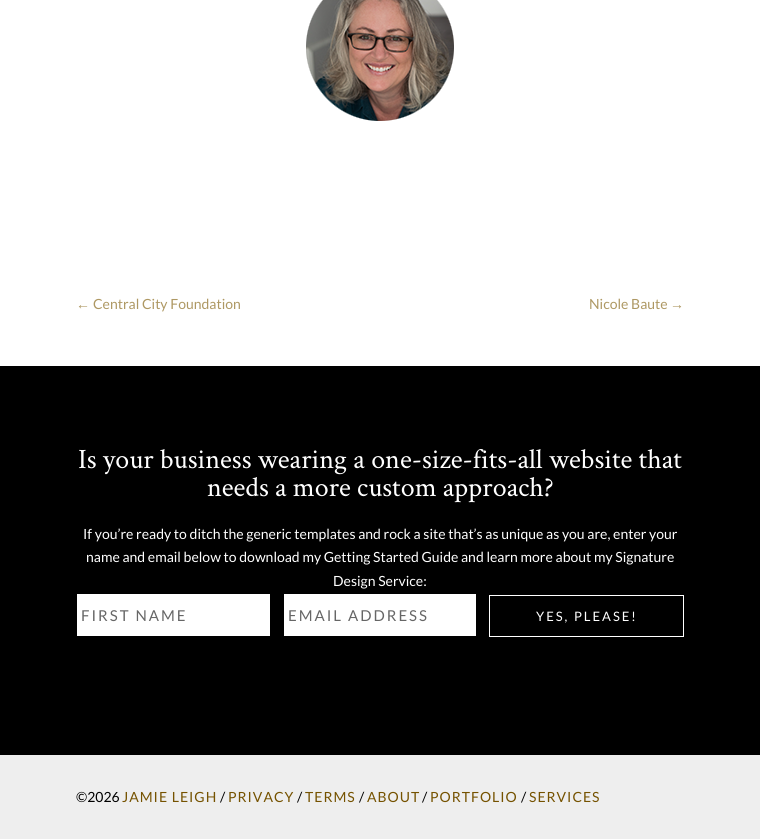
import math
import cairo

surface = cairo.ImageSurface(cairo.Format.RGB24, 760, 839)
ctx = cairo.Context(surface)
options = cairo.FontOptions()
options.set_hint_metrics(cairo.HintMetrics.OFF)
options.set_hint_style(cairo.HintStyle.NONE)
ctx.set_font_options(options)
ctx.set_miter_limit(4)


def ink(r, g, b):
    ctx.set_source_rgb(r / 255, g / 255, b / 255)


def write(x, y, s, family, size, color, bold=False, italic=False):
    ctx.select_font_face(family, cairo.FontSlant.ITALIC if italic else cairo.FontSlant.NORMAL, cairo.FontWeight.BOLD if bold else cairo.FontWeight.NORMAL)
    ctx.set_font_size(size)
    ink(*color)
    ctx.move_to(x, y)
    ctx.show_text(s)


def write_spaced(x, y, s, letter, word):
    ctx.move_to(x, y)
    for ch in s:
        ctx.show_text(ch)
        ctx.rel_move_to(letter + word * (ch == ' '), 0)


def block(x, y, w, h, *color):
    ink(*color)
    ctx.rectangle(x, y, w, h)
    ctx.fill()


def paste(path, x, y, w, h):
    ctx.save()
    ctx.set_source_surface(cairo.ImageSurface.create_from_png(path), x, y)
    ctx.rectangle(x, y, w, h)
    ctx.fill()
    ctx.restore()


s1 = dict(family="Liberation Sans", size=14, color=(174, 152, 99))
s2 = dict(family="Lato", size=14, color=(174, 152, 99))
s3 = dict(family="Crimson Text", size=28, color=(255, 255, 255))
s4 = dict(family="Lato", size=14, color=(255, 255, 255))
s5 = dict(family="Lato", size=14, color=(0, 0, 0))

ink(255, 255, 255)
ctx.paint()
paste("pic1.png", 306, 0, 148, 121)
write(76, 309, "←", **s1)
write(93, 309, "Central City Foundation", **s2)
write(589, 309, "Nicole Baute", **s2)
write(670, 309, "→", **s1)
block(0, 366, 760, 389, 0, 0, 0)
write(78, 468, "Is your business wearing a one-size-fits-all website that", **s3)
write(207, 496, "needs a more custom approach?", **s3)
write(83, 539, "If you’re ready to ditch the generic templates and rock a site that’s as unique as you are, enter your", **s4)
write(86, 562, "name and email below to download my Getting Started Guide and learn more about my Signature", **s4)
write(333, 586, "Design Service:", **s4)
block(77, 594, 193, 42, 255, 255, 255)
ctx.set_font_size(15)
ink(102, 102, 102)
write_spaced(81, 621, "FIRST NAME", 2, 0)
block(284, 594, 192, 42, 255, 255, 255)
ink(102, 102, 102)
write_spaced(288, 621, "EMAIL ADDRESS", 2, 0)
ctx.rectangle(489.5, 595.5, 194, 41)
ink(255, 255, 255)
ctx.set_line_width(1)
ctx.stroke()
ctx.set_font_size(13)
write_spaced(536, 621, "YES, PLEASE!", 2, 0)
block(0, 755, 760, 84, 238, 238, 238)
write(76, 802, "©2026", **s5)
ink(117, 82, 0)
write_spaced(122, 802, "JAMIE LEIGH", 1, 0)
write(220, 802, "/", **s5)
ink(117, 82, 0)
write_spaced(228, 802, "PRIVACY", 1, 0)
write(297, 802, "/", **s5)
ink(117, 82, 0)
write_spaced(305, 802, "TERMS", 1, 0)
write(359, 802, "/", **s5)
ink(117, 82, 0)
write_spaced(367, 802, "ABOUT", 1, 0)
write(422, 802, "/", **s5)
ink(117, 82, 0)
write_spaced(430, 802, "PORTFOLIO", 1, 0)
write(521, 802, "/", **s5)
ink(117, 82, 0)
write_spaced(529, 802, "SERVICES", 1, 0)
surface.write_to_png("screenshot.png")
